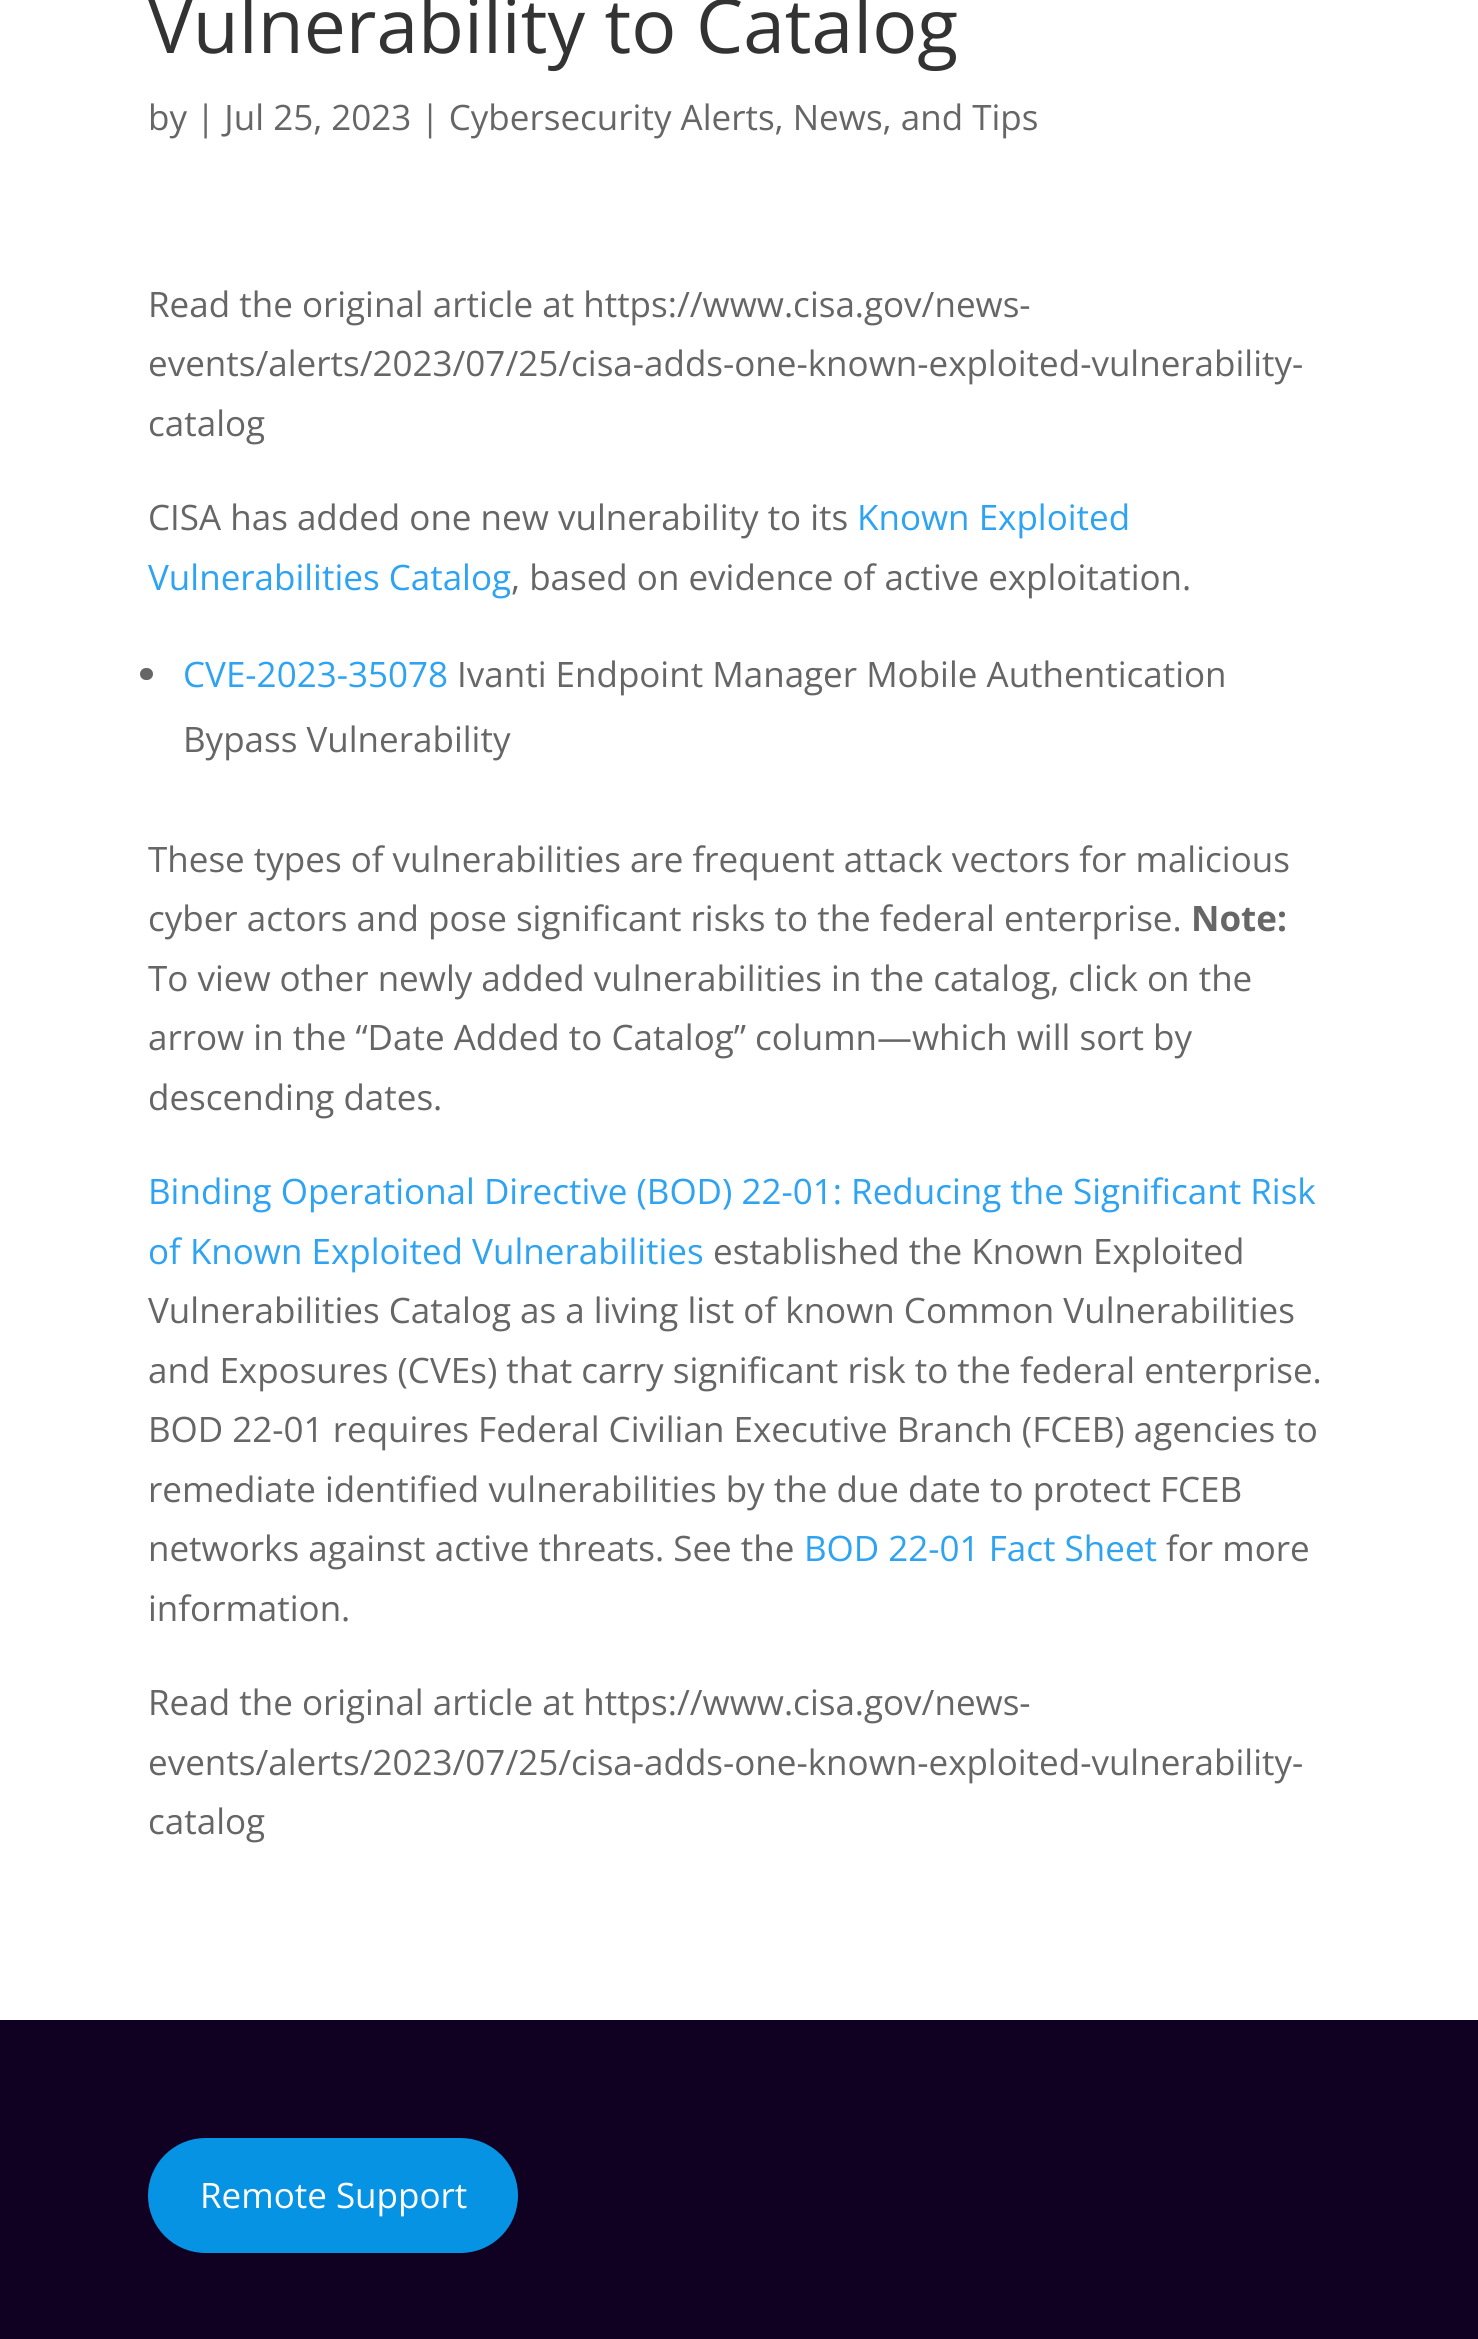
import math
import cairo

surface = cairo.ImageSurface(cairo.Format.RGB24, 1478, 2339)
ctx = cairo.Context(surface)
options = cairo.FontOptions()
options.set_hint_metrics(cairo.HintMetrics.OFF)
options.set_hint_style(cairo.HintStyle.NONE)
ctx.set_font_options(options)
ctx.set_miter_limit(4)


def ink(r, g, b):
    ctx.set_source_rgb(r / 255, g / 255, b / 255)


def write(x, y, s, family, size, color, bold=False, italic=False):
    ctx.select_font_face(family, cairo.FontSlant.ITALIC if italic else cairo.FontSlant.NORMAL, cairo.FontWeight.BOLD if bold else cairo.FontWeight.NORMAL)
    ctx.set_font_size(size)
    ink(*color)
    ctx.move_to(x, y)
    ctx.show_text(s)


def block(x, y, w, h, *color):
    ink(*color)
    ctx.rectangle(x, y, w, h)
    ctx.fill()


def round_path(x, y, w, h, r):
    ctx.new_sub_path()
    for i, (u, v) in enumerate([(x + w - r, y + h - r), (x + r, y + h - r), (x + r, y + r), (x + w - r, y + r)]):
        ctx.arc(u, v, r, i * math.pi / 2, (i + 1) * math.pi / 2)
    ctx.close_path()


s1 = dict(family="Open Sans", size=75, color=(51, 51, 51))
s2 = dict(family="Open Sans", size=35, color=(102, 102, 102))
s3 = dict(family="Open Sans", size=35, color=(46, 163, 242))
s4 = dict(family="Open Sans", size=35, color=(102, 102, 102), bold=True)
s5 = dict(family="Open Sans", size=35, color=(255, 255, 255))

ink(255, 255, 255)
ctx.paint()
write(148, 53, "Vulnerability to Catalog", **s1)
write(148, 130, "by | Jul 25, 2023 | Cybersecurity Alerts, News, and Tips", **s2)
write(148, 317, "Read the original article at https://www.cisa.gov/news-", **s2)
write(148, 376, "events/alerts/2023/07/25/cisa-adds-one-known-exploited-vulnerability-", **s2)
write(148, 436, "catalog", **s2)
write(148, 530, "CISA has added one new vulnerability to its", **s2)
write(857, 530, "Known Exploited", **s3)
write(148, 590, "Vulnerabilities Catalog", **s3)
write(511, 590, ", based on evidence of active exploitation.", **s2)
round_path(140, 668, 13, 12, 6)
ctx.fill()
write(183, 687, "CVE-2023-35078", **s3)
write(457, 687, "Ivanti Endpoint Manager Mobile Authentication", **s2)
write(183, 752, "Bypass Vulnerability", **s2)
write(148, 872, "These types of vulnerabilities are frequent attack vectors for malicious", **s2)
write(148, 931, "cyber actors and pose significant risks to the federal enterprise.", **s2)
write(1191, 931, "Note:", **s4)
write(148, 991, "To view other newly added vulnerabilities in the catalog, click on the", **s2)
write(148, 1050, "arrow in the “Date Added to Catalog” column—which will sort by", **s2)
write(148, 1110, "descending dates.", **s2)
write(148, 1204, "Binding Operational Directive (BOD) 22-01: Reducing the Significant Risk", **s3)
write(148, 1264, "of Known Exploited Vulnerabilities", **s3)
write(713, 1264, "established the Known Exploited", **s2)
write(148, 1323, "Vulnerabilities Catalog as a living list of known Common Vulnerabilities", **s2)
write(148, 1383, "and Exposures (CVEs) that carry significant risk to the federal enterprise.", **s2)
write(148, 1442, "BOD 22-01 requires Federal Civilian Executive Branch (FCEB) agencies to", **s2)
write(148, 1502, "remediate identified vulnerabilities by the due date to protect FCEB", **s2)
write(148, 1561, "networks against active threats. See the", **s2)
write(804, 1561, "BOD 22-01 Fact Sheet", **s3)
write(1166, 1561, "for more", **s2)
write(148, 1621, "information.", **s2)
write(148, 1715, "Read the original article at https://www.cisa.gov/news-", **s2)
write(148, 1775, "events/alerts/2023/07/25/cisa-adds-one-known-exploited-vulnerability-", **s2)
write(148, 1834, "catalog", **s2)
block(0, 2020, 1478, 319, 16, 1, 34)
ink(6, 147, 227)
round_path(148, 2138, 370, 115, 57.5)
ctx.fill()
write(200, 2208, "Remote Support", **s5)
surface.write_to_png("screenshot.png")
